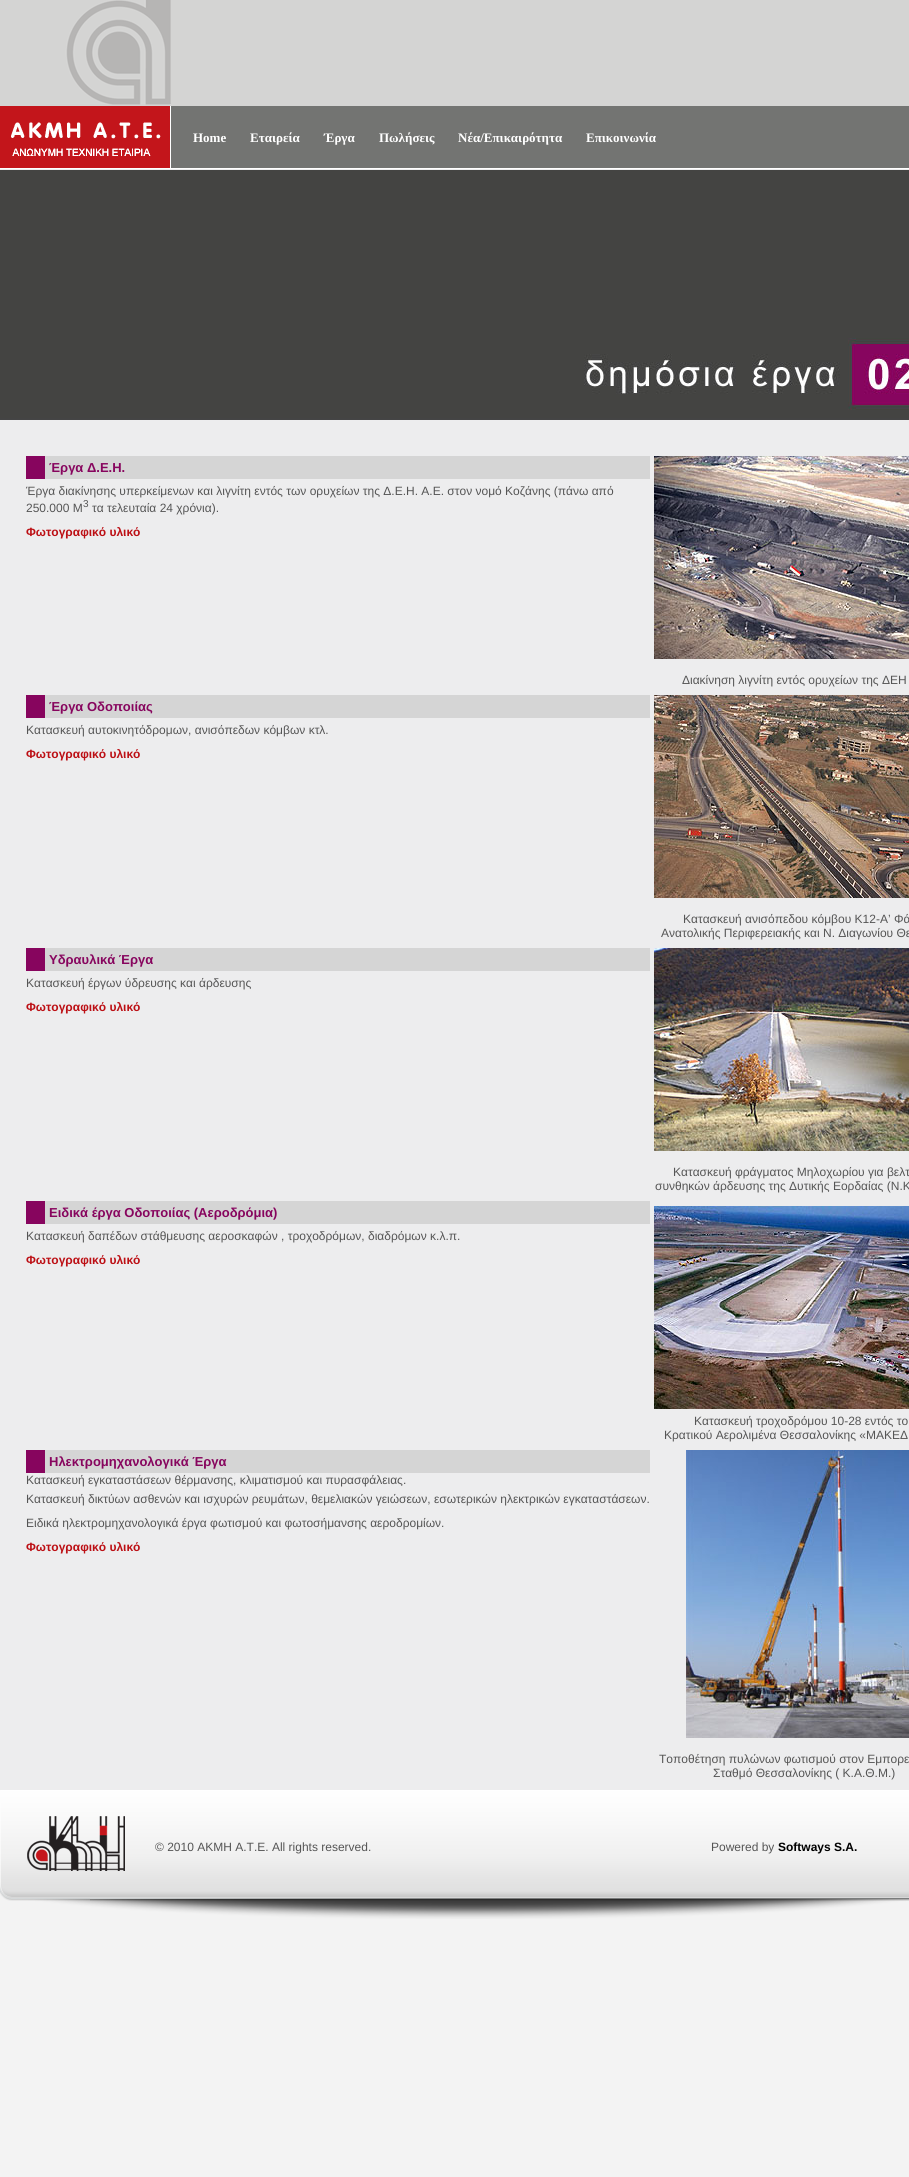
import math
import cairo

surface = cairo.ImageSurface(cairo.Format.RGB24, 909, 2177)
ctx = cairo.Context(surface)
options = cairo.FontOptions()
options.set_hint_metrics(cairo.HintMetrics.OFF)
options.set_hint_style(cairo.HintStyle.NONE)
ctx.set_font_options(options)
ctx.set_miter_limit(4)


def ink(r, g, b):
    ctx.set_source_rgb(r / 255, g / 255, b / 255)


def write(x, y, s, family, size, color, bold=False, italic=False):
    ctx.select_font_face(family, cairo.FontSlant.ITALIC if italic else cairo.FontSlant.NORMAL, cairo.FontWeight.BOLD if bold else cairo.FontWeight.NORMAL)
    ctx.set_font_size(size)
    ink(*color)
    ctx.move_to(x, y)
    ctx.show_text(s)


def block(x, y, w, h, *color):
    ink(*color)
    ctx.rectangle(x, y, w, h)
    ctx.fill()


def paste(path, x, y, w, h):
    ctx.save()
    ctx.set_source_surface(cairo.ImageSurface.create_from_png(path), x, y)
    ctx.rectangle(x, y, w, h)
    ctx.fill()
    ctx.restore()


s1 = dict(family="Liberation Serif", size=13, color=(255, 255, 255), bold=True)
s2 = dict(family="Liberation Sans", size=13, color=(135, 5, 94), bold=True)
s3 = dict(family="Liberation Sans", size=12, color=(85, 85, 85))
s4 = dict(family="Liberation Sans", size=10, color=(85, 85, 85))
s5 = dict(family="Liberation Sans", size=12, color=(188, 15, 20), bold=True)
s6 = dict(family="Liberation Sans", size=12, color=(0, 0, 0), bold=True)

ink(243, 243, 243)
ctx.paint()
paste("pic1.png", 0, 0, 909, 440)
paste("pic2.png", 0, 0, 171, 168)
write(193, 142, "Home", **s1)
write(250, 142, "Εταιρεία", **s1)
write(324, 142, "Έργα", **s1)
write(379, 142, "Πωλήσεις", **s1)
write(458, 142, "Νέα/Επικαιρότητα", **s1)
write(586, 142, "Επικοινωνία", **s1)
paste("pic3.png", 0, 170, 909, 250)
block(0, 440, 909, 1350, 237, 237, 238)
block(26, 456, 19, 23, 135, 5, 94)
block(45, 456, 605, 23, 213, 213, 213)
write(49, 472, "Έργα Δ.Ε.Η.", **s2)
write(26, 495, "Έργα διακίνησης υπερκείμενων και λιγνίτη εντός των ορυχείων της Δ.Ε.Η. Α.Ε. στον νομό Κοζάνης (πάνω από", **s3)
write(26, 512, "250.000 Μ", **s3)
write(83, 507, "3", **s4)
write(92, 512, "τα τελευταία 24 χρόνια).", **s3)
write(26, 536, "Φωτογραφικό υλικό", **s5)
paste("pic4.png", 654, 456, 255, 203)
write(682, 684, "Διακίνηση λιγνίτη εντός ορυχείων της ΔΕΗ", **s3)
block(26, 695, 19, 23, 135, 5, 94)
block(45, 695, 605, 23, 213, 213, 213)
write(49, 711, "Έργα Οδοποιίας", **s2)
write(26, 734, "Κατασκευή αυτοκινητόδρομων, ανισόπεδων κόμβων κτλ.", **s3)
write(26, 758, "Φωτογραφικό υλικό", **s5)
paste("pic5.png", 654, 695, 255, 203)
write(683, 923, "Κατασκευή ανισόπεδου κόμβου Κ12-Α’ Φά", **s3)
write(661, 937, "Ανατολικής Περιφερειακής και Ν. Διαγωνίου Θε", **s3)
block(26, 948, 19, 23, 135, 5, 94)
block(45, 948, 605, 23, 213, 213, 213)
write(49, 964, "Υδραυλικά Έργα", **s2)
write(26, 987, "Κατασκευή έργων ύδρευσης και άρδευσης", **s3)
write(26, 1011, "Φωτογραφικό υλικό", **s5)
paste("pic6.png", 654, 948, 255, 203)
write(673, 1176, "Κατασκευή φράγματος Μηλοχωρίου για βελτ", **s3)
write(655, 1190, "συνθηκών άρδευσης της Δυτικής Εορδαίας (Ν.Κ", **s3)
block(26, 1201, 19, 23, 135, 5, 94)
block(45, 1201, 605, 23, 213, 213, 213)
write(49, 1217, "Ειδικά έργα Οδοποιίας (Αεροδρόμια)", **s2)
write(26, 1240, "Κατασκευή δαπέδων στάθμευσης αεροσκαφών , τροχοδρόμων, διαδρόμων κ.λ.π.", **s3)
write(26, 1264, "Φωτογραφικό υλικό", **s5)
paste("pic7.png", 654, 1206, 255, 203)
write(694, 1425, "Κατασκευή τροχοδρόμου 10-28 εντός το", **s3)
write(664, 1439, "Κρατικού Αερολιμένα Θεσσαλονίκης «ΜΑΚΕΔ", **s3)
block(26, 1450, 19, 23, 135, 5, 94)
block(45, 1450, 605, 23, 213, 213, 213)
write(49, 1466, "Ηλεκτρομηχανολογικά Έργα", **s2)
write(26, 1484, "Κατασκευή εγκαταστάσεων θέρμανσης, κλιματισμού και πυρασφάλειας.", **s3)
write(26, 1503, "Κατασκευή δικτύων ασθενών και ισχυρών ρευμάτων, θεμελιακών γειώσεων, εσωτερικών ηλεκτρικών εγκαταστάσεων.", **s3)
write(26, 1527, "Ειδικά ηλεκτρομηχανολογικά έργα φωτισμού και φωτοσήμανσης αεροδρομίων.", **s3)
write(26, 1551, "Φωτογραφικό υλικό", **s5)
paste("pic8.png", 686, 1450, 223, 288)
write(659, 1763, "Τοποθέτηση πυλώνων φωτισμού στον Εμπορε", **s3)
write(713, 1777, "Σταθμό Θεσσαλονίκης ( Κ.Α.Θ.Μ.)", **s3)
paste("pic9.png", 0, 1790, 909, 129)
write(155, 1851, "© 2010 ΑΚΜΗ Α.Τ.Ε. All rights reserved.", **s3)
write(711, 1851, "Powered by", **s3)
write(778, 1851, "Softways S.A.", **s6)
surface.write_to_png("screenshot.png")
